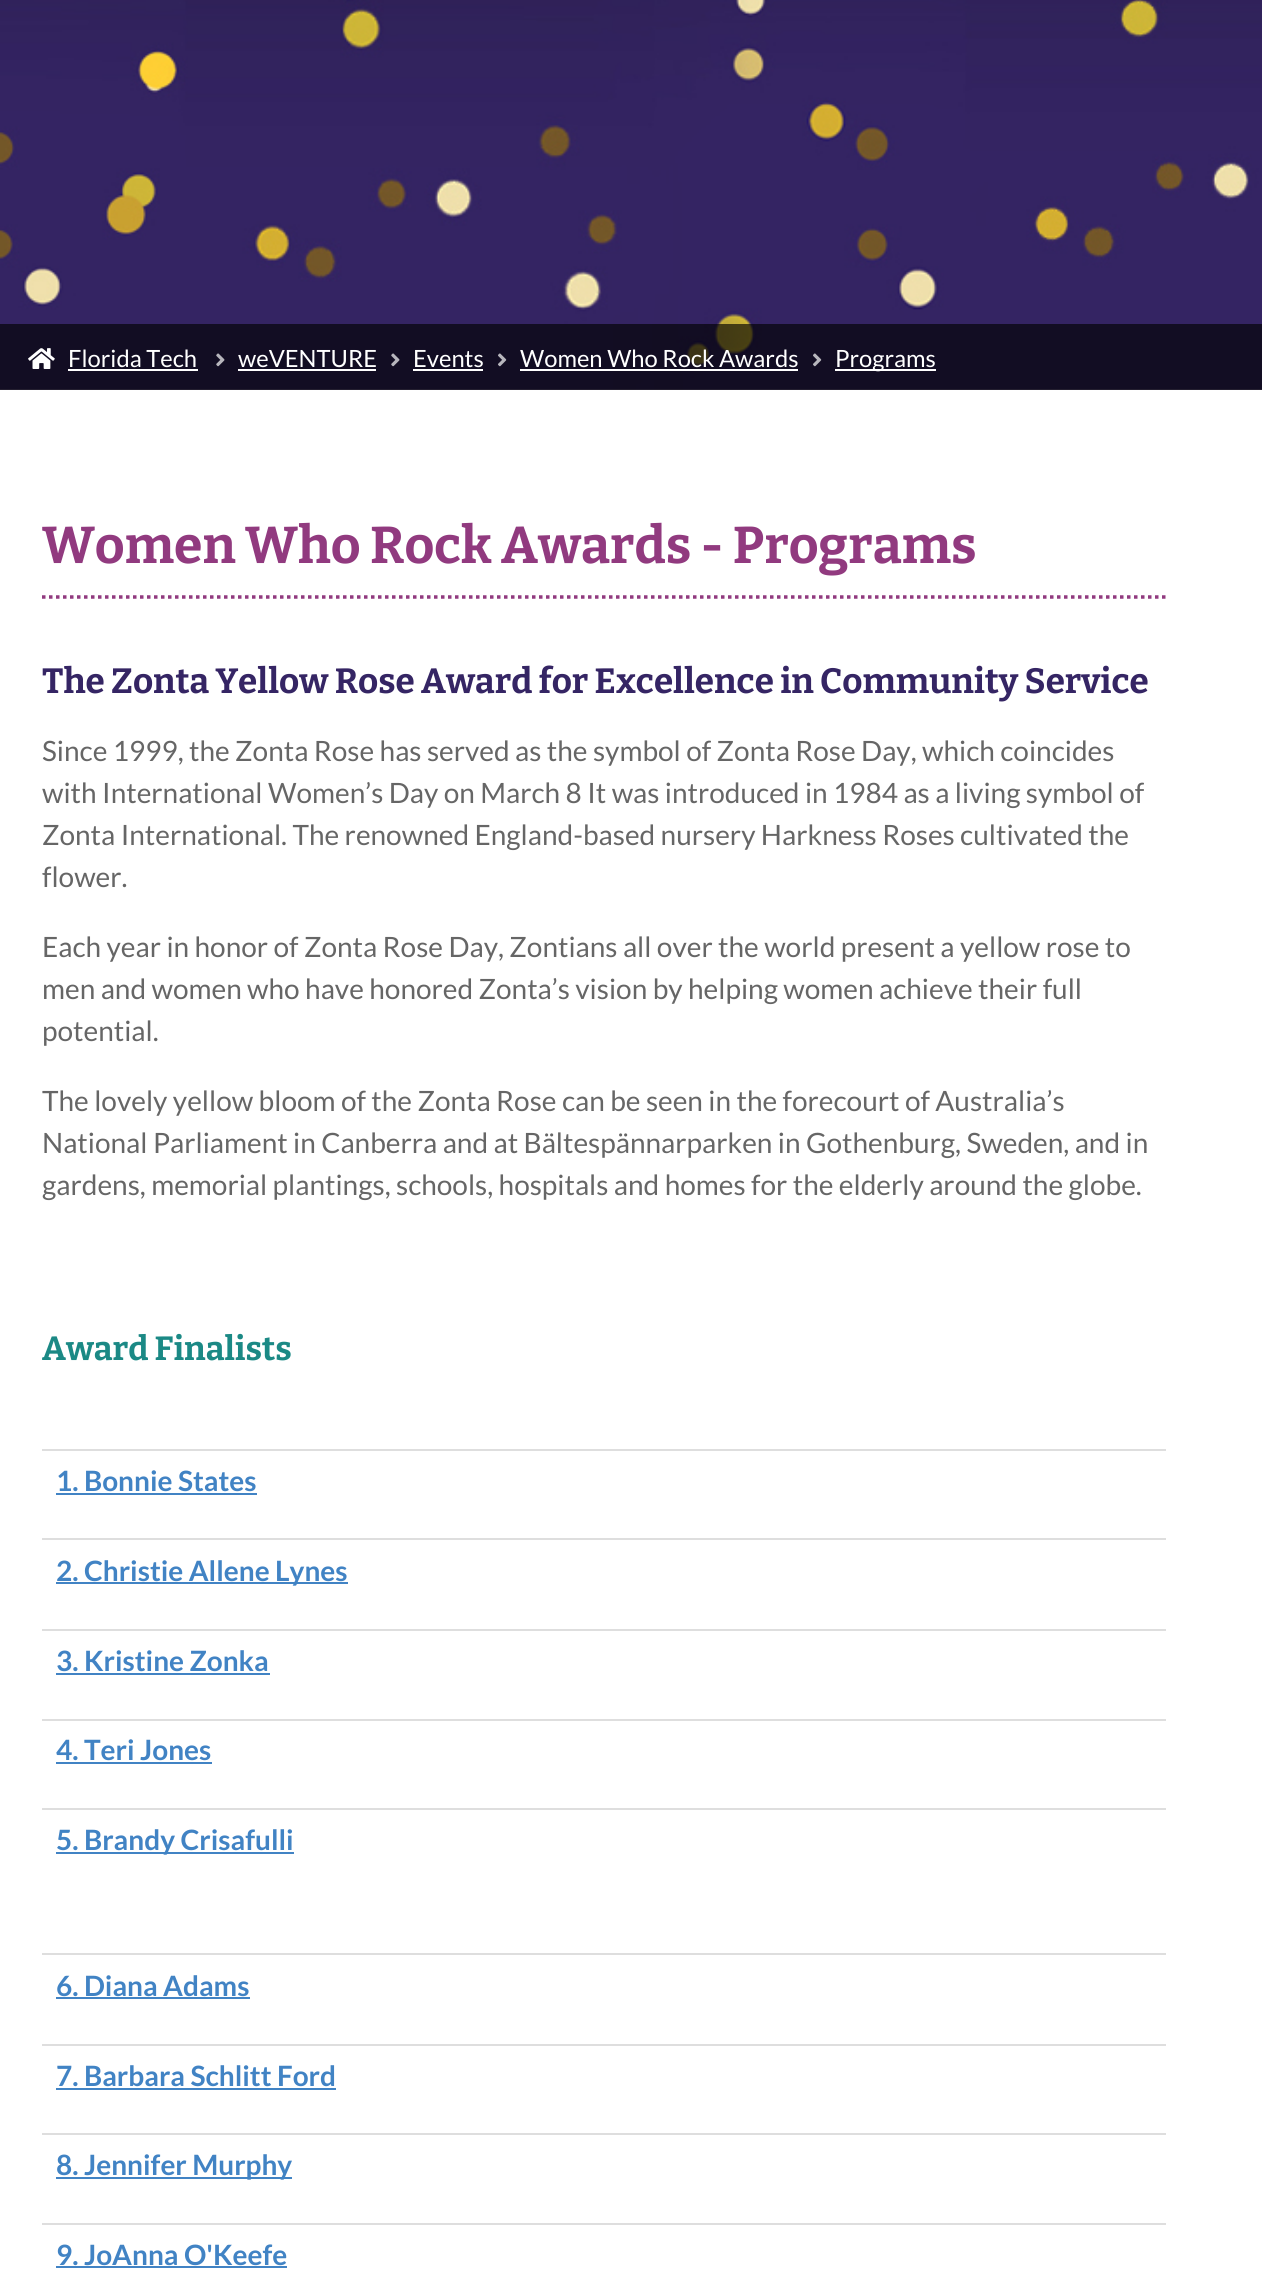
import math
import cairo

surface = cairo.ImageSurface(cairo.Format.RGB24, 1262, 2283)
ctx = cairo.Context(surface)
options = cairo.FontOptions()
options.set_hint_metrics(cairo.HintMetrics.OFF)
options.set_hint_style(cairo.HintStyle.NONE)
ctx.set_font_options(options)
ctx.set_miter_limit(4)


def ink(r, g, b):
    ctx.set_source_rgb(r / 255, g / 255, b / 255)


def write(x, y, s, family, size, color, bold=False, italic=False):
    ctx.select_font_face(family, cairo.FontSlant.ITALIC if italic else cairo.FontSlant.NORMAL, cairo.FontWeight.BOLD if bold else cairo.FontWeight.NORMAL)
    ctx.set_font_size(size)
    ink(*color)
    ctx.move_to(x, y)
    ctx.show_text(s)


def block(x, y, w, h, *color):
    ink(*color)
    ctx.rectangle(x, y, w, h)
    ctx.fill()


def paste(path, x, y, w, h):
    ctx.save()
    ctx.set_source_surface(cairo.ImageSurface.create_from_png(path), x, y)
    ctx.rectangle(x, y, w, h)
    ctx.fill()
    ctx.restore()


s1 = dict(family="Lato", size=23.75, color=(255, 255, 255))
s2 = dict(family="Bitter", size=51.75, color=(145, 58, 127), bold=True)
s3 = dict(family="Bitter", size=35, color=(53, 37, 100), bold=True)
s4 = dict(family="Lato", size=28, color=(102, 102, 102))
s5 = dict(family="Bitter", size=33.5, color=(27, 137, 133), bold=True)
s6 = dict(family="Lato", size=28, color=(65, 131, 196), bold=True)

ink(255, 255, 255)
ctx.paint()
paste("pic1.png", 0, 0, 1262, 390)
ctx.set_source_rgba(0, 0, 0, 0.65)
ctx.rectangle(0, 324, 1262, 66)
ctx.fill()
paste("pic2.png", 28, 348, 27, 21)
write(68, 367, "Florida Tech", **s1)
block(68, 369, 130, 2, 255, 255, 255)
paste("pic3.png", 216, 353, 9, 14)
write(238, 367, "weVENTURE", **s1)
block(238, 369, 138, 2, 255, 255, 255)
paste("pic3.png", 391, 353, 9, 14)
write(413, 367, "Events", **s1)
block(413, 369, 70, 2, 255, 255, 255)
paste("pic4.png", 498, 353, 9, 14)
write(520, 367, "Women Who Rock Awards", **s1)
block(520, 369, 278, 2, 255, 255, 255)
paste("pic4.png", 813, 353, 9, 14)
block(835, 369, 101, 2, 255, 255, 255)
write(835, 367, "Programs", **s1)
ctx.new_path()
ctx.move_to(42, 597)
ctx.line_to(1165.5, 597)
ink(145, 58, 127)
ctx.set_line_width(3.5)
ctx.set_dash([3.5, 3.5])
ctx.stroke()
write(42, 563, "Women Who Rock Awards - Programs", **s2)
write(42, 693, "The Zonta Yellow Rose Award for Excellence in Community Service", **s3)
write(42, 761, "Since 1999, the Zonta Rose has served as the symbol of Zonta Rose Day, which coincides", **s4)
write(42, 803, "with International Women’s Day on March 8 It was introduced in 1984 as a living symbol of", **s4)
write(42, 845, "Zonta International. The renowned England-based nursery Harkness Roses cultivated the", **s4)
write(42, 887, "flower.", **s4)
write(42, 957, "Each year in honor of Zonta Rose Day, Zontians all over the world present a yellow rose to", **s4)
write(42, 999, "men and women who have honored Zonta’s vision by helping women achieve their full", **s4)
write(42, 1041, "potential.", **s4)
write(42, 1111, "The lovely yellow bloom of the Zonta Rose can be seen in the forecourt of Australia’s", **s4)
write(42, 1153, "National Parliament in Canberra and at Bältespännarparken in Gothenburg, Sweden, and in", **s4)
write(42, 1195, "gardens, memorial plantings, schools, hospitals and homes for the elderly around the globe.", **s4)
write(42, 1360, "Award Finalists", **s5)
block(42, 1449, 1124, 2, 222, 222, 222)
write(56, 1491, "1. Bonnie States", **s6)
block(56, 1493, 201, 2, 65, 131, 196)
block(42, 1538, 1124, 2, 222, 222, 222)
block(56, 1582, 292, 2, 65, 131, 196)
write(56, 1581, "2. Christie Allene Lynes", **s6)
block(42, 1629, 1124, 2, 222, 222, 222)
write(56, 1671, "3. Kristine Zonka", **s6)
block(56, 1673, 214, 2, 65, 131, 196)
block(42, 1719, 1124, 2, 222, 222, 222)
write(56, 1760, "4. Teri Jones", **s6)
block(56, 1762, 156, 2, 65, 131, 196)
block(42, 1808, 1124, 2, 222, 222, 222)
block(56, 1852, 238, 2, 65, 131, 196)
write(56, 1850, "5. Brandy Crisafulli", **s6)
block(42, 1953, 1124, 2, 222, 222, 222)
write(56, 1996, "6. Diana Adams", **s6)
block(56, 1997, 194, 2, 65, 131, 196)
block(42, 2044, 1124, 2, 222, 222, 222)
write(56, 2086, "7. Barbara Schlitt Ford", **s6)
block(56, 2088, 280, 2, 65, 131, 196)
block(42, 2133, 1124, 2, 222, 222, 222)
block(56, 2177, 236, 2, 65, 131, 196)
write(56, 2175, "8. Jennifer Murphy", **s6)
block(42, 2223, 1124, 2, 222, 222, 222)
write(56, 2265, "9. JoAnna O'Keefe", **s6)
block(56, 2266, 231, 2, 65, 131, 196)
surface.write_to_png("screenshot.png")
